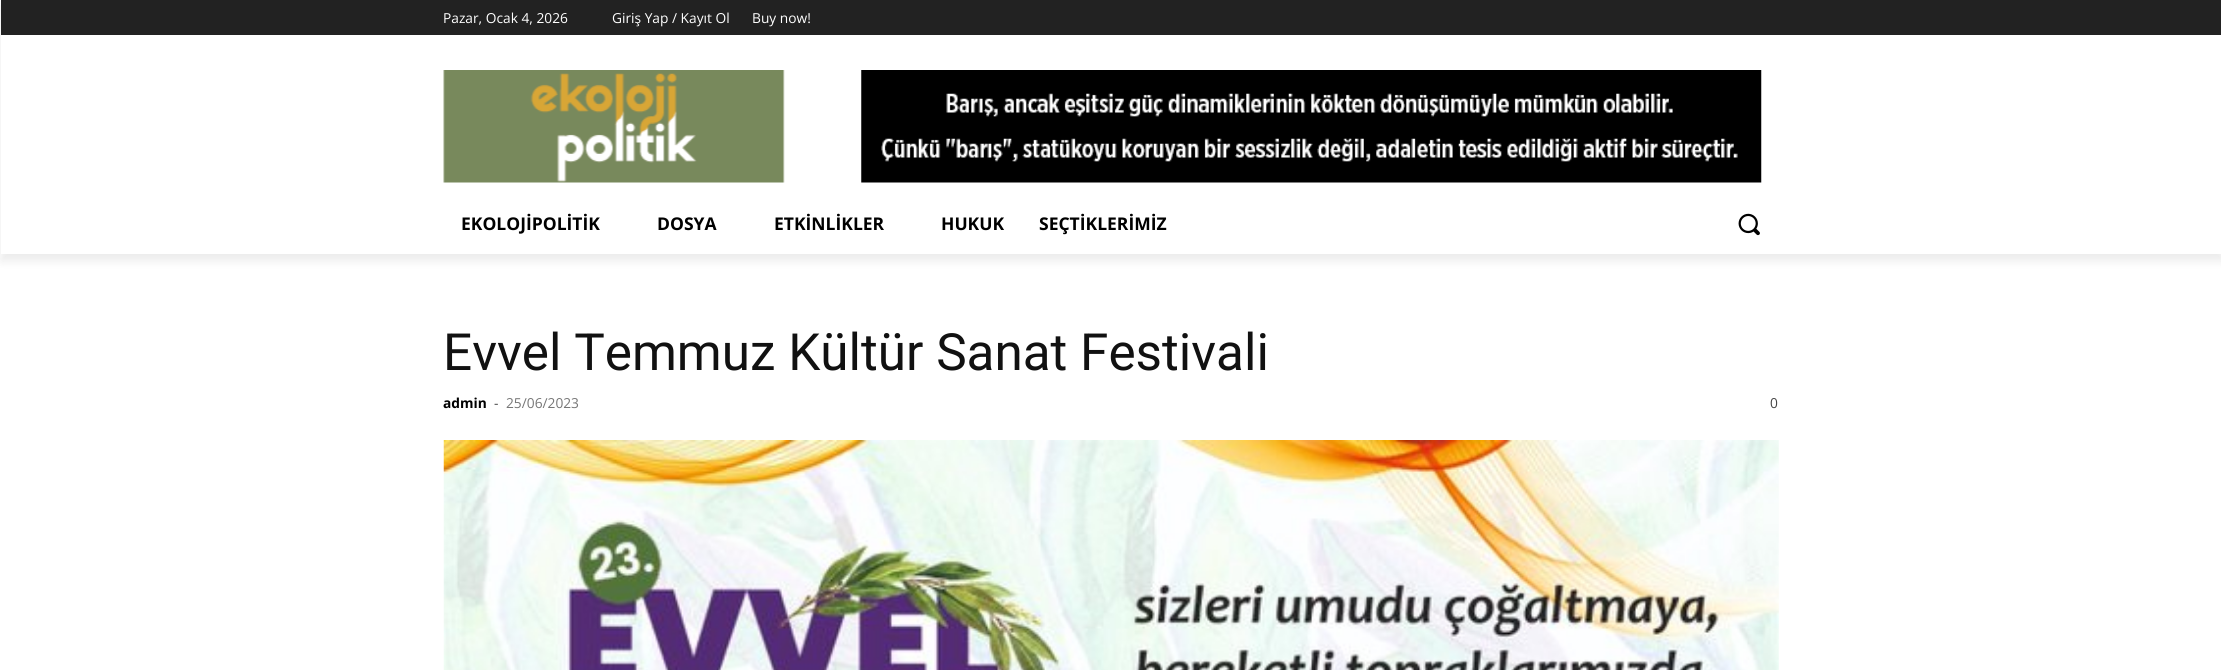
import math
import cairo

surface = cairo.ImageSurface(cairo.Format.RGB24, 2221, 670)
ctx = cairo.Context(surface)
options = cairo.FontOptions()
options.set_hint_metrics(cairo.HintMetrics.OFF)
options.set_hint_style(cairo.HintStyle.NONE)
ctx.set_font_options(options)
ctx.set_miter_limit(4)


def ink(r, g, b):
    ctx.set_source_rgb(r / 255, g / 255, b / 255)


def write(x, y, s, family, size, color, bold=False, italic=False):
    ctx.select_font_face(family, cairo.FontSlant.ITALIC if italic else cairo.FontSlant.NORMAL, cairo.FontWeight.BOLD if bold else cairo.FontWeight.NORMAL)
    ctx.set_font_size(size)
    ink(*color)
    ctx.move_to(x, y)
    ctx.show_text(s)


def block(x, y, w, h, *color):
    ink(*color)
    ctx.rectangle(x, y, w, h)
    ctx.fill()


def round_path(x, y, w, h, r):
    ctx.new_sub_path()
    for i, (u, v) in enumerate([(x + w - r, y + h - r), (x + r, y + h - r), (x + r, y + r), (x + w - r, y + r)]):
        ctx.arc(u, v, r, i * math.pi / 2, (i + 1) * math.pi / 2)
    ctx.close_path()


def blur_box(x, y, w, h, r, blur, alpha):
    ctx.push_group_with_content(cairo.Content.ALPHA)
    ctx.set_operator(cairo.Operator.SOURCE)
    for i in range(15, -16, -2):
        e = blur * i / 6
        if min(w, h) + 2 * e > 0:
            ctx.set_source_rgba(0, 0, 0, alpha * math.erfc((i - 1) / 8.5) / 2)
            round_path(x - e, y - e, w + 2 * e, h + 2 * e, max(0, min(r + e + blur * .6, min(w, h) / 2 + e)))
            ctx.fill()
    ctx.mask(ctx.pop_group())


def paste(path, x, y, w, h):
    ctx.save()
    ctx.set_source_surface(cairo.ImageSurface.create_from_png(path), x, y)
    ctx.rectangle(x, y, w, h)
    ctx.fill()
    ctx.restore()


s1 = dict(family="Open Sans", size=13.75, color=(255, 255, 255))
s2 = dict(family="Open Sans", size=17.5, color=(0, 0, 0), bold=True)
s3 = dict(family="Roboto", size=51.25, color=(17, 17, 17))
s4 = dict(family="Open Sans", size=13.75, color=(0, 0, 0), bold=True)
s5 = dict(family="Open Sans", size=13.75, color=(68, 68, 68))
s6 = dict(family="Open Sans", size=13.75, color=(118, 118, 118))

ink(255, 255, 255)
ctx.paint()
block(1, 0, 2220, 35, 34, 34, 34)
paste("pic1.png", 443, 70, 342, 113)
paste("pic2.png", 861, 70, 901, 113)
ctx.save()
ctx.set_fill_rule(cairo.FillRule.EVEN_ODD)
ctx.new_path()
ctx.move_to(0, 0)
ctx.line_to(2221, 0)
ctx.line_to(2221, 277)
ctx.line_to(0, 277)
ctx.close_path()
ctx.move_to(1, 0)
ctx.line_to(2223, 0)
ctx.line_to(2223, 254)
ctx.line_to(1, 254)
ctx.close_path()
ctx.clip()
ink(0, 0, 0)
blur_box(1, 8, 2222, 253, 0, 5, 0.08)
ctx.restore()
write(443, 23, "Pazar, Ocak 4, 2026", **s1)
write(612, 23, "Giriş Yap / Kayıt Ol", **s1)
write(752, 23, "Buy now!", **s1)
write(461, 230, "EKOLOJİPOLİTİK", **s2)
write(657, 230, "DOSYA", **s2)
write(774, 230, "ETKİNLİKLER", **s2)
write(941, 230, "HUKUK", **s2)
write(1039, 230, "SEÇTİKLERİMİZ", **s2)
paste("pic3.png", 1738, 213, 22, 23)
write(443, 370, "Evvel Temmuz Kültür Sanat Festivali", **s3)
write(443, 408, "admin", **s4)
write(494, 408, "-", **s5)
write(506, 408, "25/06/2023", **s6)
write(1770, 408, "0", **s5)
paste("pic4.png", 443, 440, 1336, 230)
surface.write_to_png("screenshot.png")
